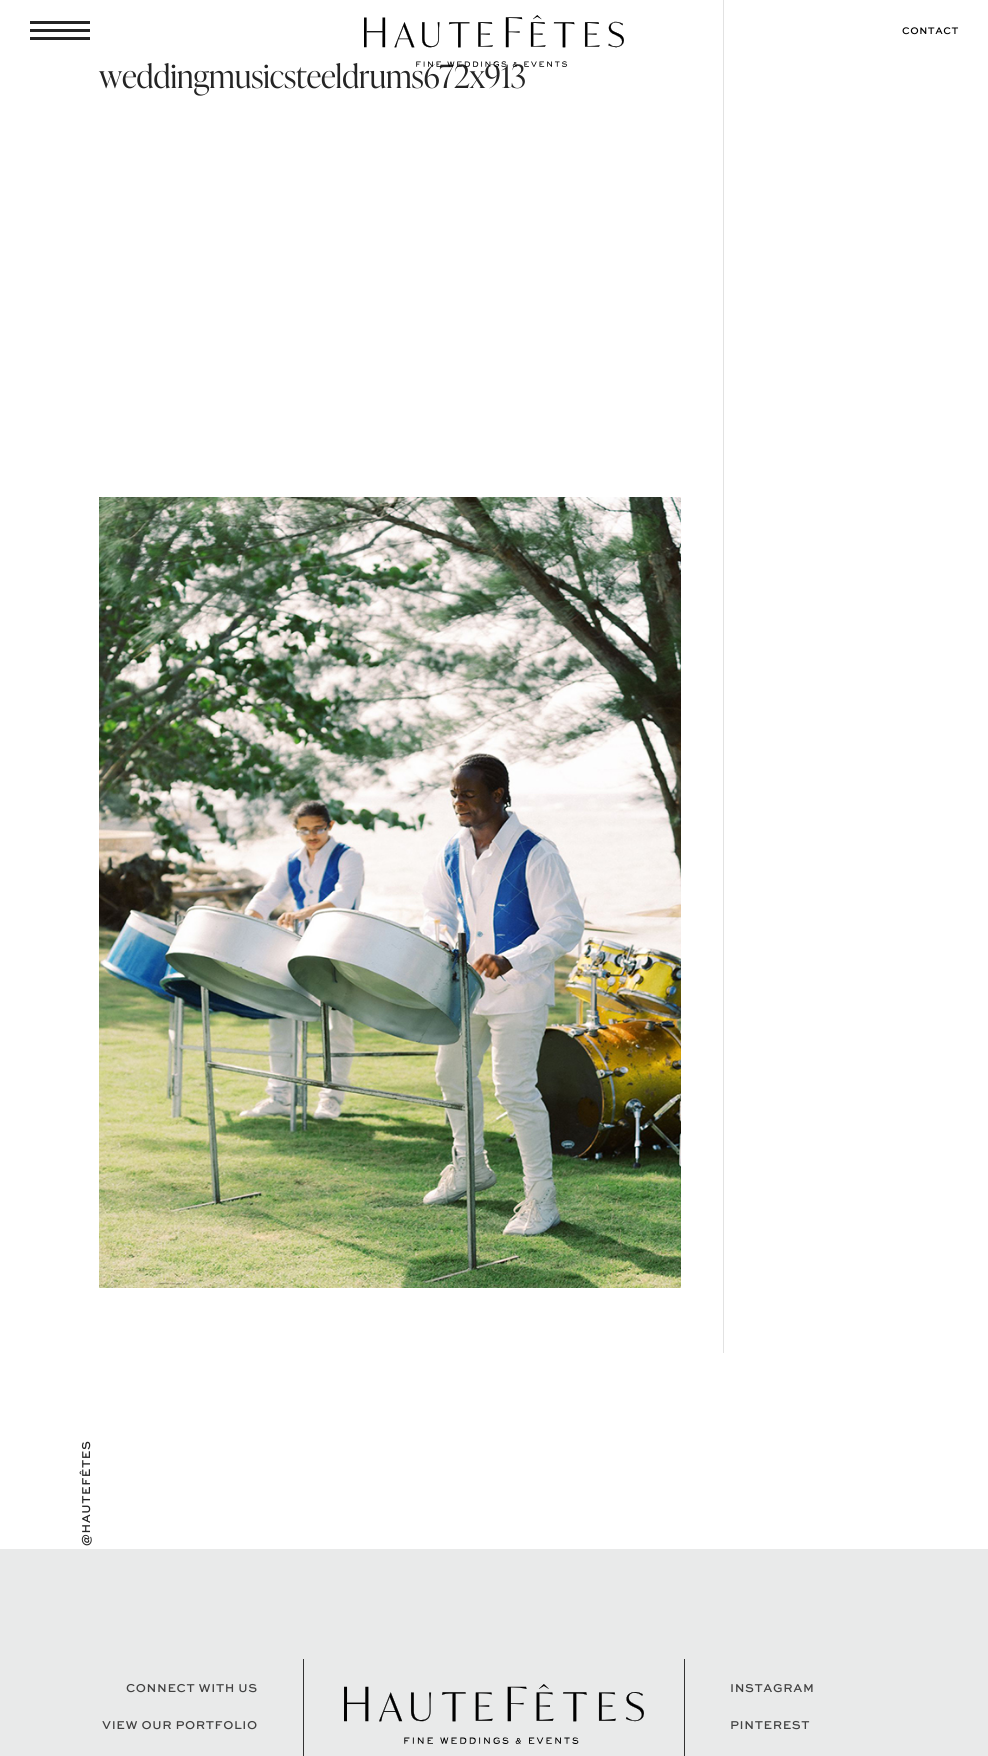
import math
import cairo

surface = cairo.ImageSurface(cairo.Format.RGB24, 988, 1756)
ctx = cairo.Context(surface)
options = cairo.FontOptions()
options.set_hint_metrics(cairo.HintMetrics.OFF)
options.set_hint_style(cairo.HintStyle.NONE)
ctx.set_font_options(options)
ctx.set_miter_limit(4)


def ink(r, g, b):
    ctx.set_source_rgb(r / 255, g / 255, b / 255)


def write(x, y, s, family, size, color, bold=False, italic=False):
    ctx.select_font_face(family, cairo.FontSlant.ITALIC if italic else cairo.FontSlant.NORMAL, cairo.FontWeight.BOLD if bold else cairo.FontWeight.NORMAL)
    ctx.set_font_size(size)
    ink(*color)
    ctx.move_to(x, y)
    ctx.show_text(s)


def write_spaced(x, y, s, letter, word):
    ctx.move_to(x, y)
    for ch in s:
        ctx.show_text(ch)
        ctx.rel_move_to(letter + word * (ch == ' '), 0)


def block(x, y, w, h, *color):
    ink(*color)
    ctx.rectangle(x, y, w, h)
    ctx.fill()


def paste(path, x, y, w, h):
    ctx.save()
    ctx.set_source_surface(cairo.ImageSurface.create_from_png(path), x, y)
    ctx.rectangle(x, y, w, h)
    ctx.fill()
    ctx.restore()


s1 = dict(family="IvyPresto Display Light", size=32, color=(36, 36, 36))

ink(255, 255, 255)
ctx.paint()
block(30, 21, 60, 3, 36, 36, 36)
block(30, 29, 60, 3, 36, 36, 36)
block(30, 37, 60, 3, 36, 36, 36)
write(99, 88, "weddingmusicsteeldrums672x913", **s1)
paste("pic1.png", 364, 15, 260, 52)
ctx.select_font_face("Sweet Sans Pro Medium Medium")
ctx.set_font_size(10)
ink(0, 0, 0)
write_spaced(902, 34, "CONTACT", 0.5, 0)
paste("pic2.png", 99, 497, 582, 791)
block(723, 0, 1, 1353, 226, 226, 226)
block(0, 1549, 988, 207, 233, 234, 234)
ctx.set_font_size(12)
ink(36, 36, 36)
ctx.save()
ctx.translate(90, 1546)
ctx.rotate(-90 * math.pi / 180)
write_spaced(0, 0, "@HAUTEFÊTES", 0.6, 0)
ctx.restore()
ink(66, 66, 66)
write_spaced(126, 1692, "CONNECT WITH US", 0.6, 0)
write_spaced(102, 1729, "VIEW OUR PORTFOLIO", 0.6, 0)
block(684, 1659, 1, 97, 51, 51, 51)
block(303, 1659, 1, 97, 51, 51, 51)
paste("pic3.png", 344, 1684, 300, 60)
ink(66, 66, 66)
write_spaced(730, 1692, "INSTAGRAM", 0.6, 0)
write_spaced(730, 1729, "PINTEREST", 0.6, 0)
surface.write_to_png("screenshot.png")
